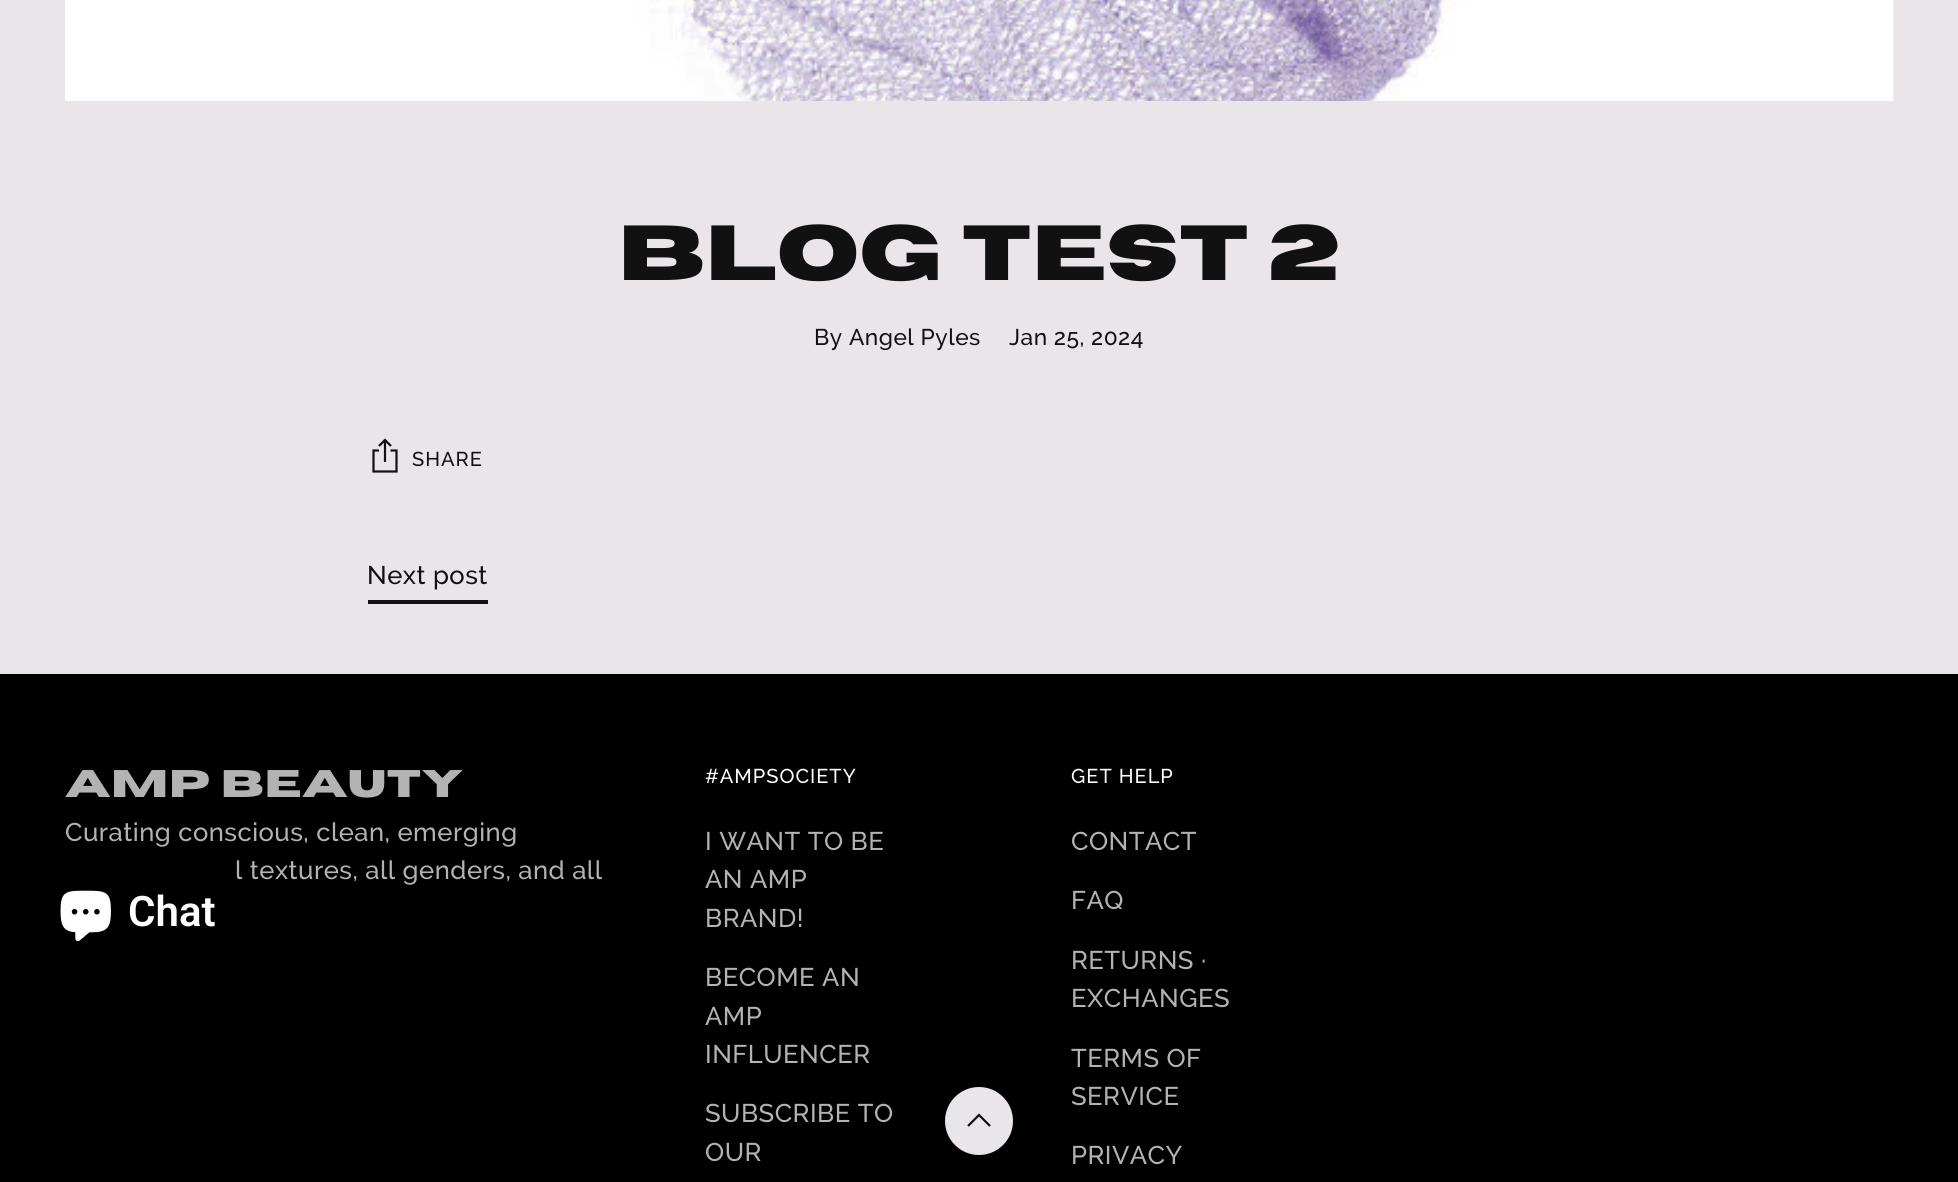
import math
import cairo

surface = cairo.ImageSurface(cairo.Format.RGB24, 1958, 1182)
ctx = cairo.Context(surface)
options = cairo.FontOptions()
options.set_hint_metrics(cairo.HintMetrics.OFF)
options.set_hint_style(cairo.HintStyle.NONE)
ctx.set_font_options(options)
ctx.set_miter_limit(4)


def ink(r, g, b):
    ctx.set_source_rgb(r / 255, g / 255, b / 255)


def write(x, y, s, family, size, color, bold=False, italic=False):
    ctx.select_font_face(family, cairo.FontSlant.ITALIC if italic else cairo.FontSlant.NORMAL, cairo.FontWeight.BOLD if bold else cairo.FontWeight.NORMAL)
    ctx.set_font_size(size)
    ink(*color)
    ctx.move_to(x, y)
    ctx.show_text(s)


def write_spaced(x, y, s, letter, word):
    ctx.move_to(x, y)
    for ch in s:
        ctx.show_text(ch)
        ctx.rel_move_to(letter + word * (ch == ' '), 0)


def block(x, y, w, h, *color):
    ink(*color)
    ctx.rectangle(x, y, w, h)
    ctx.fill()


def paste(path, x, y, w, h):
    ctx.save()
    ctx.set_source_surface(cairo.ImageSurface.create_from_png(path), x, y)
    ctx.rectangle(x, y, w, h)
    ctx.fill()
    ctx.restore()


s1 = dict(family="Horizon", size=77.9, color=(17, 17, 17), bold=True)
s2 = dict(family="Roboto SemiBold", size=42, color=(255, 255, 255))

ink(233, 229, 233)
ctx.paint()
paste("pic1.png", 65, 0, 1829, 101)
write(618, 280, "BLOG TEST 2", **s1)
ctx.select_font_face("Raleway Medium")
ctx.set_font_size(22.75)
write_spaced(814, 345, "By Angel Pyles", 0.5, 0)
write_spaced(1009, 345, "Jan 25, 2024", 0.5, 0)
ctx.new_path()
ctx.move_to(379, 450.5)
ctx.line_to(373.5, 450.5)
ctx.line_to(373.5, 471.5)
ctx.line_to(396.5, 471.5)
ctx.line_to(396.5, 450.5)
ctx.line_to(390.5, 450.5)
ctx.move_to(385, 462)
ctx.line_to(385, 441)
ctx.move_to(391, 446)
ctx.line_to(385, 440)
ctx.line_to(379, 446)
ctx.set_line_width(2.2)
ctx.stroke()
ctx.set_font_size(20)
write_spaced(412, 466, "SHARE", 1, 0)
ctx.set_font_size(25.6)
write_spaced(367, 584, "Next post", 0.5, 0)
block(368, 600, 120, 4, 17, 17, 17)
block(0, 674, 1958, 508, 0, 0, 0)
ctx.select_font_face("Horizon", cairo.FontSlant.NORMAL, cairo.FontWeight.BOLD)
ctx.set_font_size(38.5)
ink(179, 179, 179)
write_spaced(65, 797, "AMP Beauty", 0.5, 0)
ctx.select_font_face("Raleway Medium")
ctx.set_font_size(25.6)
write_spaced(65, 841, "Curating conscious, clean, emerging", 0.5, 0)
write_spaced(235, 879, "l textures, all genders, and all", 0.5, 0)
ctx.set_font_size(20)
ink(255, 255, 255)
write_spaced(705, 783, "#AMPSOCIETY", 1, 0)
ctx.set_font_size(25.6)
ink(179, 179, 179)
write_spaced(705, 850, "I WANT TO BE", 0.5, 0)
write_spaced(705, 888, "AN AMP", 0.5, 0)
write_spaced(705, 927, "BRAND!", 0.5, 0)
write_spaced(705, 986, "BECOME AN", 0.5, 0)
write_spaced(705, 1025, "AMP", 0.5, 0)
write_spaced(705, 1063, "INFLUENCER", 0.5, 0)
write_spaced(705, 1122, "SUBSCRIBE TO", 0.5, 0)
write_spaced(705, 1161, "OUR", 0.5, 0)
ctx.set_font_size(20)
ink(255, 255, 255)
write_spaced(1071, 783, "GET HELP", 1, 0)
ctx.set_font_size(25.6)
ink(179, 179, 179)
write_spaced(1071, 850, "CONTACT", 0.5, 0)
write_spaced(1071, 909, "FAQ", 0.5, 0)
write_spaced(1071, 969, "RETURNS ·", 0.5, 0)
write_spaced(1071, 1007, "EXCHANGES", 0.5, 0)
write_spaced(1071, 1067, "TERMS OF", 0.5, 0)
write_spaced(1071, 1105, "SERVICE", 0.5, 0)
write_spaced(1071, 1164, "PRIVACY", 0.5, 0)
ink(233, 229, 233)
ctx.new_path()
ctx.arc(979, 1121, 34, 0, 2 * math.pi)
ctx.fill()
ctx.new_path()
ctx.move_to(990, 1126)
ctx.line_to(979, 1115)
ctx.line_to(968, 1126)
ink(17, 17, 17)
ctx.stroke()
paste("pic2.png", 60, 890, 51, 52)
write(128, 926, "Chat", **s2)
surface.write_to_png("screenshot.png")
